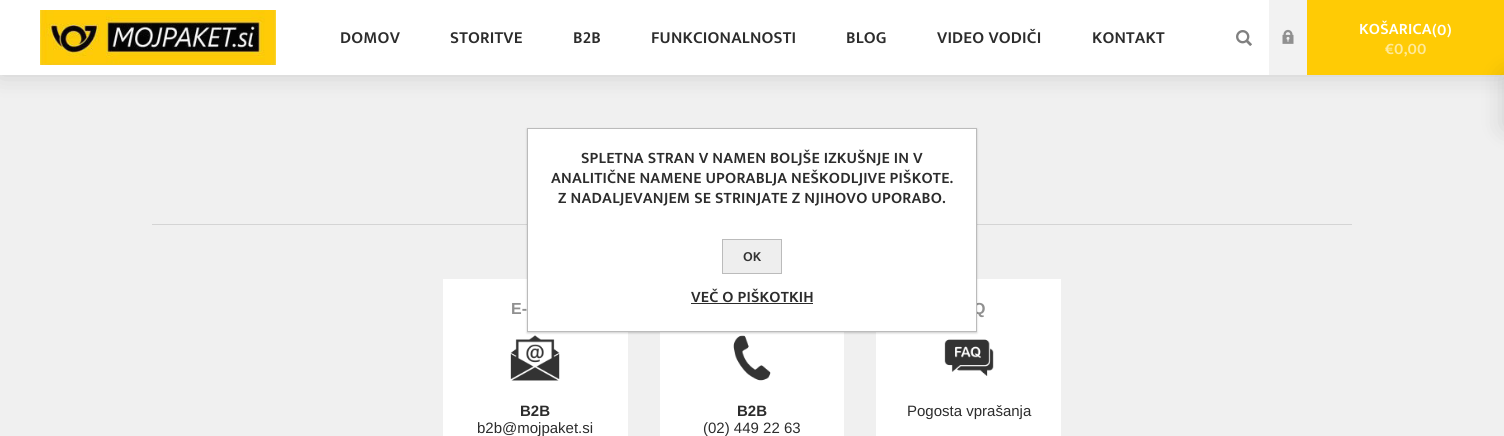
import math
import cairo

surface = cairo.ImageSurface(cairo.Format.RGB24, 1504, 436)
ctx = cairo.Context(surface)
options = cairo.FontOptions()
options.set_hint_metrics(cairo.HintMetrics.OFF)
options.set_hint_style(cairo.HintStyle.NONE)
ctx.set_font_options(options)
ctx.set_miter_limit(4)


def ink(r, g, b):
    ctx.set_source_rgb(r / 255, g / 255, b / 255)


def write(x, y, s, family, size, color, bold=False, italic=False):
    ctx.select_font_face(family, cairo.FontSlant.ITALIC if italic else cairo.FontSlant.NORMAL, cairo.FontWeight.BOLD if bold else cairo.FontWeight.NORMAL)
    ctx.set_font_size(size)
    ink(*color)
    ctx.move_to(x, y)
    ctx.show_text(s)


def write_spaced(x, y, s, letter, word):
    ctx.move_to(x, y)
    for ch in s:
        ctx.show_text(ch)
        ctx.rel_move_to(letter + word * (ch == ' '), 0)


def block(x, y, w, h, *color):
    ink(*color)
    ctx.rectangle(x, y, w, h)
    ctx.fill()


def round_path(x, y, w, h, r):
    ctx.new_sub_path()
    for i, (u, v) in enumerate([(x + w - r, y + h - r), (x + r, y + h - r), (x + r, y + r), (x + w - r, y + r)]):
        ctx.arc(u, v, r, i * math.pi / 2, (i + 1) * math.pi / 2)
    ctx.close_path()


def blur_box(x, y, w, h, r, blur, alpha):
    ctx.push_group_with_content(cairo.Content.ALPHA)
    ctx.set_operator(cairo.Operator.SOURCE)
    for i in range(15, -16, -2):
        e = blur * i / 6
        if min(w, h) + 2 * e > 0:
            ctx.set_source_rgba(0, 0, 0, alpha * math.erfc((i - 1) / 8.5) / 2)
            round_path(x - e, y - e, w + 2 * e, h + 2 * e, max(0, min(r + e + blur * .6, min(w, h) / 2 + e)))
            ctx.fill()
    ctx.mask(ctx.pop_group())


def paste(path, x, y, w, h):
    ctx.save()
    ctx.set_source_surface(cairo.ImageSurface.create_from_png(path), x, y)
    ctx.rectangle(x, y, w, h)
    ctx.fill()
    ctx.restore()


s1 = dict(family="Liberation Sans", size=16, color=(144, 144, 144), bold=True)
s2 = dict(family="Liberation Sans", size=15, color=(44, 44, 44), bold=True)
s3 = dict(family="Liberation Sans", size=15, color=(44, 44, 44))
s4 = dict(family="Mukta SemiBold", size=14, color=(51, 51, 51))

ink(240, 240, 240)
ctx.paint()
ink(0, 0, 0)
blur_box(0, 0, 1504, 75, 0, 12.5, 0.15)
block(0, 0, 1269, 75, 255, 255, 255)
paste("pic1.png", 40, 10, 236, 55)
ctx.select_font_face("Mukta SemiBold")
ctx.set_font_size(17)
ink(44, 44, 44)
write_spaced(340, 43, "DOMOV", 0.2, 0)
write_spaced(450, 43, "STORITVE", 0.2, 0)
write_spaced(573, 43, "B2B", 0.2, 0)
write_spaced(651, 43, "FUNKCIONALNOSTI", 0.2, 0)
write_spaced(846, 43, "BLOG", 0.2, 0)
write_spaced(937, 43, "VIDEO VODIČI", 0.2, 0)
write_spaced(1092, 43, "KONTAKT", 0.2, 0)
paste("pic2.png", 1236, 30, 16, 16)
block(1269, 0, 38, 75, 242, 242, 242)
paste("pic3.png", 1282, 29, 12, 15)
block(1307, 0, 197, 75, 255, 203, 5)
ctx.set_font_size(16)
ink(255, 255, 255)
write_spaced(1359, 34, "KOŠARICA", 0.2, 0)
write_spaced(1432, 35, "(0)", 0.2, 0)
ink(255, 234, 155)
write_spaced(1385, 54, "€0,00", 0.2, 0)
ink(0, 0, 0)
blur_box(1504, 75, 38, 53, 0, 12.5, 0.15)
block(152, 224, 1200, 1, 212, 212, 212)
block(443, 279, 185, 157, 255, 255, 255)
write(511, 314, "E-", **s1)
paste("pic4.png", 510, 335, 50, 46)
write(520, 416, "B2B", **s2)
write(477, 433, "b2b@mojpaket.si", **s3)
block(660, 332, 184, 104, 255, 255, 255)
paste("pic5.png", 733, 335, 38, 46)
write(737, 416, "B2B", **s2)
write(703, 433, "(02) 449 22 63", **s3)
block(876, 279, 185, 157, 255, 255, 255)
write(973, 314, "Q", **s1)
paste("pic6.png", 944, 339, 50, 37)
write(907, 416, "Pogosta vprašanja", **s3)
ink(0, 0, 0)
blur_box(527, 129, 450, 204, 0, 1, 0.2)
ink(255, 255, 255)
ctx.rectangle(527.5, 128.5, 449, 203)
ctx.fill_preserve()
ink(187, 187, 187)
ctx.set_line_width(1)
ctx.stroke()
ctx.select_font_face("Mukta SemiBold")
ctx.set_font_size(16)
ink(44, 44, 44)
write_spaced(581, 163, "SPLETNA STRAN V NAMEN BOLJŠE IZKUŠNJE IN V", 0.2, 0)
write_spaced(551, 183, "ANALITIČNE NAMENE UPORABLJA NEŠKODLJIVE PIŠKOTE.", 0.2, 0)
write_spaced(558, 203, "Z NADALJEVANJEM SE STRINJATE Z NJIHOVO UPORABO.", 0.2, 0)
ink(238, 238, 238)
ctx.rectangle(722.5, 239.5, 59, 34)
ctx.fill_preserve()
ink(187, 187, 187)
ctx.stroke()
write(743, 261, "OK", **s4)
ctx.set_font_size(16)
ink(44, 44, 44)
write_spaced(691, 302, "VEČ O PIŠKOTKIH", 0.2, 0)
block(691, 303, 122, 1, 44, 44, 44)
surface.write_to_png("screenshot.png")
